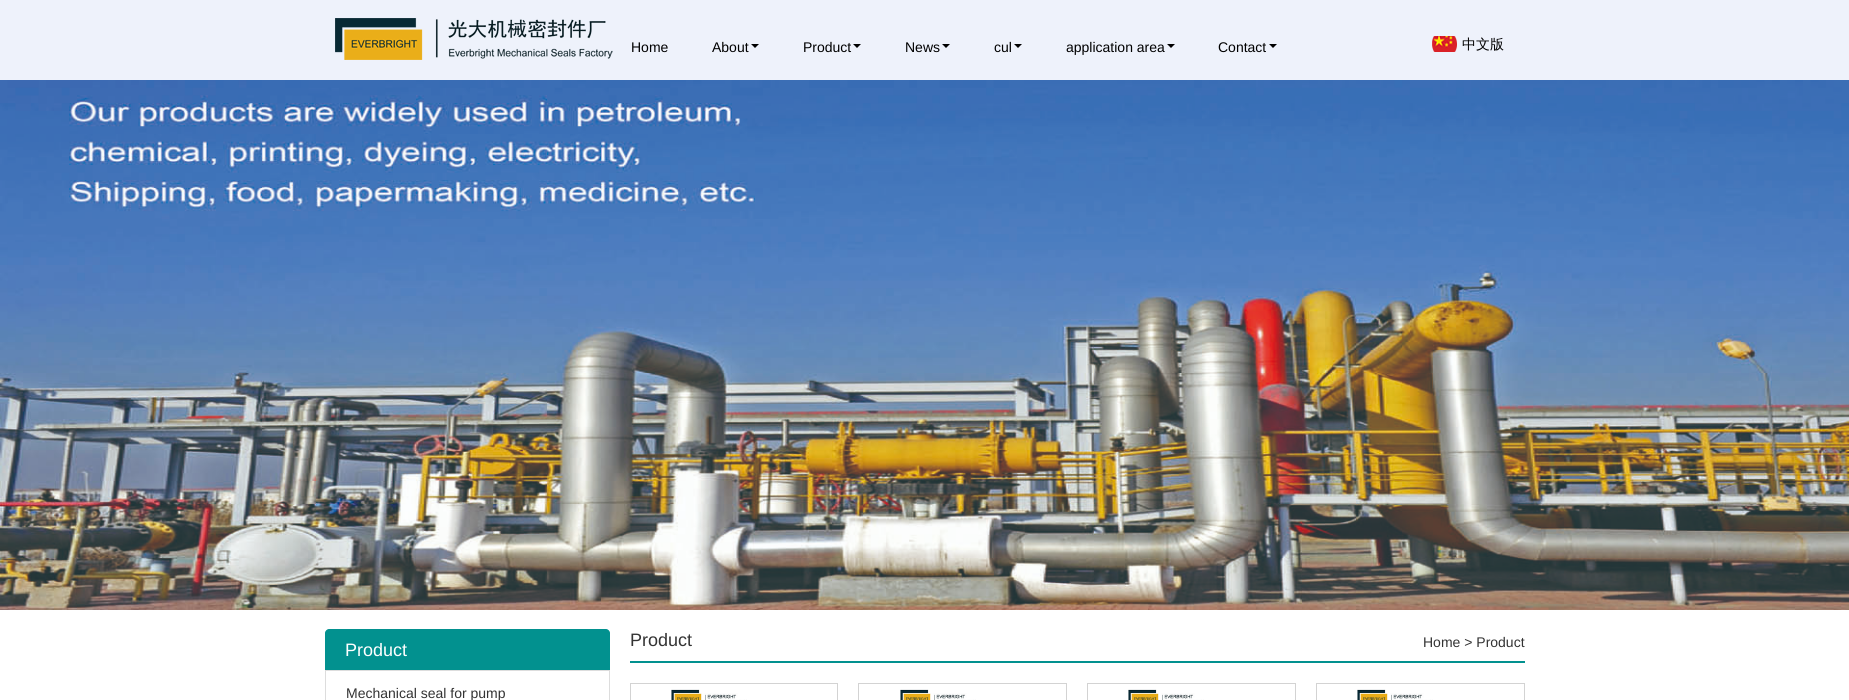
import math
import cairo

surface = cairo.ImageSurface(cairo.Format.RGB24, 1849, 700)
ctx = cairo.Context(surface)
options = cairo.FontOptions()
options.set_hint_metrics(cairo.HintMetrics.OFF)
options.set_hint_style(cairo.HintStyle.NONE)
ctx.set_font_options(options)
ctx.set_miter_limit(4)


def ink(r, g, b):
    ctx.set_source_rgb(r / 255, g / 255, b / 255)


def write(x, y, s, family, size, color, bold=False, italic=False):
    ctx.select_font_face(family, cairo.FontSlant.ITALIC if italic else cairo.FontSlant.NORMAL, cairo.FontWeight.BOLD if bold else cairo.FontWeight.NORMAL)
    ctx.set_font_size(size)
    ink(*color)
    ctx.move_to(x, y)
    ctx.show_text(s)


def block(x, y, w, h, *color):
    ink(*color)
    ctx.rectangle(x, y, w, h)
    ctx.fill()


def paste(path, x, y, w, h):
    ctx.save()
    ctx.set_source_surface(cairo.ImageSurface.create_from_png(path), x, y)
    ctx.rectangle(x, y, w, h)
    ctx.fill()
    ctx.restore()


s1 = dict(family="Liberation Sans", size=14, color=(0, 0, 0))
s2 = dict(family="WenQuanYi Zen Hei Medium", size=14, color=(0, 0, 0))
s3 = dict(family="Liberation Sans", size=18, color=(51, 51, 51))
s4 = dict(family="Liberation Sans", size=14, color=(51, 51, 51))
s5 = dict(family="Liberation Sans", size=18, color=(255, 255, 255))

ink(255, 255, 255)
ctx.paint()
block(0, 0, 1849, 80, 238, 242, 251)
paste("pic1.png", 335, 18, 278, 42)
write(631, 52, "Home", **s1)
write(712, 52, "About", **s1)
ctx.new_path()
ctx.move_to(751, 44)
ctx.line_to(759, 44)
ctx.line_to(755, 48)
ctx.close_path()
ctx.fill()
write(803, 52, "Product", **s1)
ctx.new_path()
ctx.move_to(853, 44)
ctx.line_to(861, 44)
ctx.line_to(857, 48)
ctx.close_path()
ctx.fill()
write(905, 52, "News", **s1)
ctx.new_path()
ctx.move_to(942, 44)
ctx.line_to(950, 44)
ctx.line_to(946, 48)
ctx.close_path()
ctx.fill()
write(994, 52, "cul", **s1)
ctx.new_path()
ctx.move_to(1014, 44)
ctx.line_to(1022, 44)
ctx.line_to(1018, 48)
ctx.close_path()
ctx.fill()
write(1066, 52, "application area", **s1)
ctx.new_path()
ctx.move_to(1167, 44)
ctx.line_to(1175, 44)
ctx.line_to(1171, 48)
ctx.close_path()
ctx.fill()
write(1218, 52, "Contact", **s1)
ctx.new_path()
ctx.move_to(1269, 44)
ctx.line_to(1277, 44)
ctx.line_to(1273, 48)
ctx.close_path()
ctx.fill()
paste("pic2.png", 1432, 36, 25, 16)
write(1462, 49, "中文版", **s2)
paste("pic3.png", 0, 80, 1849, 530)
block(630, 661, 895, 2, 2, 145, 143)
write(630, 646, "Product", **s3)
write(1423, 647, "Home > Product", **s4)
ctx.rectangle(630.5, 683.5, 207, 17)
ink(211, 211, 211)
ctx.set_line_width(1)
ctx.stroke()
paste("pic4.png", 671, 689, 76, 11)
ctx.rectangle(858.5, 683.5, 208, 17)
ctx.stroke()
paste("pic5.png", 900, 689, 76, 11)
ctx.rectangle(1087.5, 683.5, 208, 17)
ctx.stroke()
paste("pic5.png", 1128, 689, 76, 11)
ctx.rectangle(1316.5, 683.5, 208, 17)
ctx.stroke()
paste("pic5.png", 1357, 689, 76, 11)
ink(2, 145, 143)
ctx.new_path()
ctx.move_to(329, 629)
ctx.line_to(606, 629)
ctx.curve_to(608, 629, 610, 631, 610, 633)
ctx.line_to(610, 671)
ctx.line_to(325, 671)
ctx.line_to(325, 633)
ctx.curve_to(325, 631, 327, 629, 329, 629)
ctx.close_path()
ctx.fill()
write(345, 656, "Product", **s5)
ctx.rectangle(325.5, 670.5, 284, 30)
ink(221, 221, 221)
ctx.stroke()
write(346, 698, "Mechanical seal for pump", **s4)
surface.write_to_png("screenshot.png")
